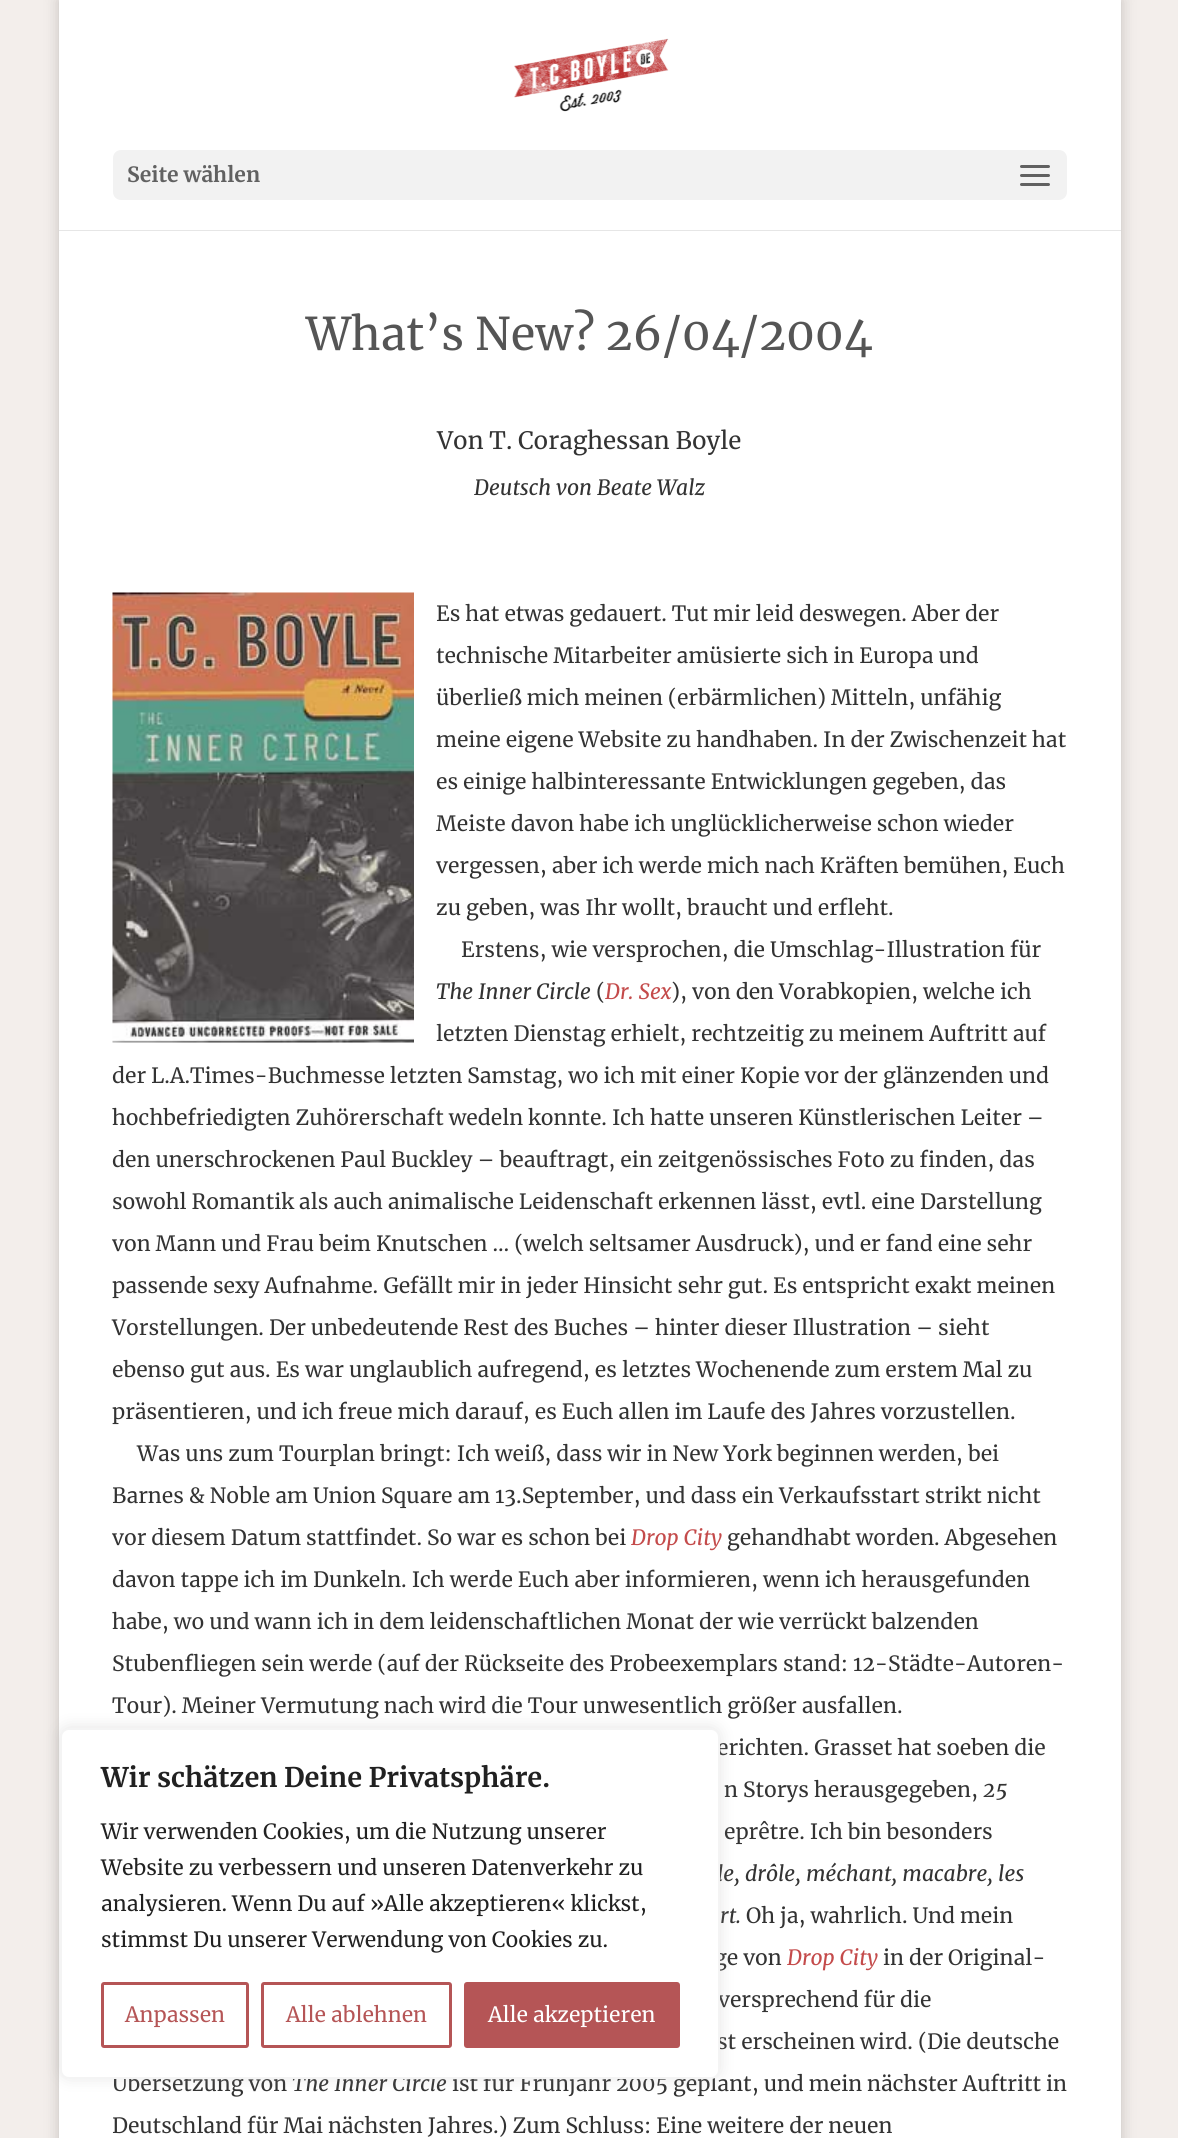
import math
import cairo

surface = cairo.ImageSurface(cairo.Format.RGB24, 1178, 2138)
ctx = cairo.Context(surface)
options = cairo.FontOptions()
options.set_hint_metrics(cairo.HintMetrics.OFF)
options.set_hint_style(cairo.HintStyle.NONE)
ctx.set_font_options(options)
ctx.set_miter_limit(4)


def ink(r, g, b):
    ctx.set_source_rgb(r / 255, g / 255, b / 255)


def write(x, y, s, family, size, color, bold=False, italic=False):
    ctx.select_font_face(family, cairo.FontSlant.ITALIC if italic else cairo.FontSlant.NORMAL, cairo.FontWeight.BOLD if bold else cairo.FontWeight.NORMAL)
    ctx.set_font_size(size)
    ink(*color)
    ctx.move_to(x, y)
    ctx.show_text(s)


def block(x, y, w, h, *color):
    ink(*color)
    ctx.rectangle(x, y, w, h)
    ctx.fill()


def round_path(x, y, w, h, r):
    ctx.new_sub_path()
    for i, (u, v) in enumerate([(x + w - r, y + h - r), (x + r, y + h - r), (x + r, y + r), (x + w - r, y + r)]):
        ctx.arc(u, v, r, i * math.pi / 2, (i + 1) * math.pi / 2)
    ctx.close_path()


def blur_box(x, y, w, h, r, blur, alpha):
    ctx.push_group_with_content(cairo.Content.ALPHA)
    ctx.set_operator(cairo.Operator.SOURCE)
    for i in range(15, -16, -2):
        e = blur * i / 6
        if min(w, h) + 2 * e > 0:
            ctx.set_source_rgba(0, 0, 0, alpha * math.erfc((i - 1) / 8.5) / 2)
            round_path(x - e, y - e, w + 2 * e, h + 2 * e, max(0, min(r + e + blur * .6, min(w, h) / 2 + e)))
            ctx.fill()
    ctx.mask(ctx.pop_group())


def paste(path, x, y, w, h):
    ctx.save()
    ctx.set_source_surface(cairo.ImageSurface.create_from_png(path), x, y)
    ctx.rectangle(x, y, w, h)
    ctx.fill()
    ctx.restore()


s1 = dict(family="Merriweather", size=21, color=(97, 97, 97), bold=True)
s2 = dict(family="Merriweather", size=45, color=(85, 85, 85))
s3 = dict(family="Merriweather", size=24, color=(51, 51, 51))
s4 = dict(family="Merriweather", size=21, color=(51, 51, 51), italic=True)
s5 = dict(family="Merriweather", size=21, color=(51, 51, 51))
s6 = dict(family="Merriweather", size=21, color=(196, 75, 75), italic=True)
s7 = dict(family="Merriweather", size=27, color=(33, 33, 33), bold=True)
s8 = dict(family="Merriweather", size=21, color=(33, 33, 33))
s9 = dict(family="Merriweather", size=21, color=(181, 85, 86))
s10 = dict(family="Merriweather", size=21, color=(255, 255, 255))

ink(243, 238, 235)
ctx.paint()
ink(0, 0, 0)
blur_box(59, 0, 1062, 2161, 0, 7.5, 0.2)
block(59, 230, 1062, 1908, 255, 255, 255)
ctx.set_source_rgba(0, 0, 0, 0.1)
ctx.new_path()
ctx.move_to(59, 230)
ctx.line_to(59, 231)
ctx.line_to(1121, 231)
ctx.line_to(1121, 2)
ctx.line_to(1120, 2)
ctx.line_to(1120, 230)
ctx.close_path()
ctx.fill()
block(59, 0, 1062, 230, 255, 255, 255)
paste("pic1.png", 514, 38, 155, 74)
ink(242, 242, 242)
round_path(113, 150, 954, 50, 8)
ctx.fill()
write(127, 182, "Seite wählen", **s1)
paste("pic2.png", 1020, 165, 30, 21)
write(306, 350, "What’s New? 26/04/2004", **s2)
write(437, 449, "Von T. Coraghessan Boyle", **s3)
write(474, 495, "Deutsch von Beate Walz", **s4)
paste("pic3.png", 112, 592, 302, 451)
write(436, 621, "Es hat etwas gedauert. Tut mir leid deswegen. Aber der", **s5)
write(436, 663, "technische Mitarbeiter amüsierte sich in Europa und", **s5)
write(436, 705, "überließ mich meinen (erbärmlichen) Mitteln, unfähig", **s5)
write(436, 747, "meine eigene Website zu handhaben. In der Zwischenzeit hat", **s5)
write(436, 789, "es einige halbinteressante Entwicklungen gegeben, das", **s5)
write(436, 831, "Meiste davon habe ich unglücklicherweise schon wieder", **s5)
write(436, 873, "vergessen, aber ich werde mich nach Kräften bemühen, Euch", **s5)
write(436, 915, "zu geben, was Ihr wollt, braucht und erfleht.", **s5)
write(461, 957, "Erstens, wie versprochen, die Umschlag-Illustration für", **s5)
write(436, 999, "The Inner Circle", **s4)
write(596, 999, "(", **s5)
write(605, 999, "Dr. Sex", **s6)
write(671, 999, "), von den Vorabkopien, welche ich", **s5)
write(436, 1041, "letzten Dienstag erhielt, rechtzeitig zu meinem Auftritt auf", **s5)
write(112, 1083, "der L.A.Times-Buchmesse letzten Samstag, wo ich mit einer Kopie vor der glänzenden und", **s5)
write(112, 1125, "hochbefriedigten Zuhörerschaft wedeln konnte. Ich hatte unseren Künstlerischen Leiter –", **s5)
write(112, 1167, "den unerschrockenen Paul Buckley – beauftragt, ein zeitgenössisches Foto zu finden, das", **s5)
write(112, 1209, "sowohl Romantik als auch animalische Leidenschaft erkennen lässt, evtl. eine Darstellung", **s5)
write(112, 1251, "von Mann und Frau beim Knutschen … (welch seltsamer Ausdruck), und er fand eine sehr", **s5)
write(112, 1293, "passende sexy Aufnahme. Gefällt mir in jeder Hinsicht sehr gut. Es entspricht exakt meinen", **s5)
write(112, 1335, "Vorstellungen. Der unbedeutende Rest des Buches – hinter dieser Illustration – sieht", **s5)
write(112, 1377, "ebenso gut aus. Es war unglaublich aufregend, es letztes Wochenende zum erstem Mal zu", **s5)
write(112, 1419, "präsentieren, und ich freue mich darauf, es Euch allen im Laufe des Jahres vorzustellen.", **s5)
write(137, 1461, "Was uns zum Tourplan bringt: Ich weiß, dass wir in New York beginnen werden, bei", **s5)
write(112, 1503, "Barnes & Noble am Union Square am 13.September, und dass ein Verkaufsstart strikt nicht", **s5)
write(112, 1545, "vor diesem Datum stattfindet. So war es schon bei", **s5)
write(631, 1545, "Drop City", **s6)
write(727, 1545, "gehandhabt worden. Abgesehen", **s5)
write(112, 1587, "davon tappe ich im Dunkeln. Ich werde Euch aber informieren, wenn ich herausgefunden", **s5)
write(112, 1629, "habe, wo und wann ich in dem leidenschaftlichen Monat der wie verrückt balzenden", **s5)
write(112, 1671, "Stubenfliegen sein werde (auf der Rückseite des Probeexemplars stand: 12-Städte-Autoren-", **s5)
write(112, 1713, "Tour). Meiner Vermutung nach wird die Tour unwesentlich größer ausfallen.", **s5)
write(717, 1755, "erichten. Grasset hat soeben die", **s5)
write(724, 1797, "n Storys herausgegeben,", **s5)
write(983, 1797, "25", **s4)
write(724, 1839, "eprêtre. Ich bin besonders", **s5)
write(717, 1881, "le, drôle, méchant, macabre, les", **s4)
write(720, 1923, "rt.", **s4)
write(746, 1923, "Oh ja, wahrlich. Und mein", **s5)
write(714, 1965, "ge von", **s5)
write(787, 1965, "Drop City", **s6)
write(883, 1965, "in der Original-", **s5)
write(718, 2007, "versprechend für die", **s5)
write(717, 2049, "st erscheinen wird. (Die deutsche", **s5)
write(112, 2091, "Übersetzung von", **s5)
write(292, 2091, "The Inner Circle", **s4)
write(452, 2091, "ist für Frühjahr 2005 geplant, und mein nächster Auftritt in", **s5)
write(112, 2133, "Deutschland für Mai nächsten Jahres.) Zum Schluss: Eine weitere der neuen", **s5)
ink(172, 171, 171)
blur_box(60, 1727, 660, 351, 9, 7.5, 0.3)
ink(255, 255, 255)
round_path(61, 1729, 658, 349, 8)
ctx.fill_preserve()
ink(244, 244, 244)
ctx.stroke()
write(101, 1787, "Wir schätzen Deine Privatsphäre.", **s7)
write(101, 1839, "Wir verwenden Cookies, um die Nutzung unserer", **s8)
write(101, 1875, "Website zu verbessern und unseren Datenverkehr zu", **s8)
write(101, 1911, "analysieren. Wenn Du auf »Alle akzeptieren« klickst,", **s8)
write(101, 1947, "stimmst Du unserer Verwendung von Cookies zu.", **s8)
round_path(102.5, 1983.5, 145, 63, 1.5)
ink(181, 85, 86)
ctx.set_line_width(3)
ctx.stroke()
write(125, 2022, "Anpassen", **s9)
round_path(262.5, 1983.5, 188, 63, 1.5)
ctx.stroke()
write(286, 2022, "Alle ablehnen", **s9)
round_path(465.5, 1983.5, 213, 63, 1.5)
ctx.fill_preserve()
ctx.stroke()
write(488, 2022, "Alle akzeptieren", **s10)
surface.write_to_png("screenshot.png")
